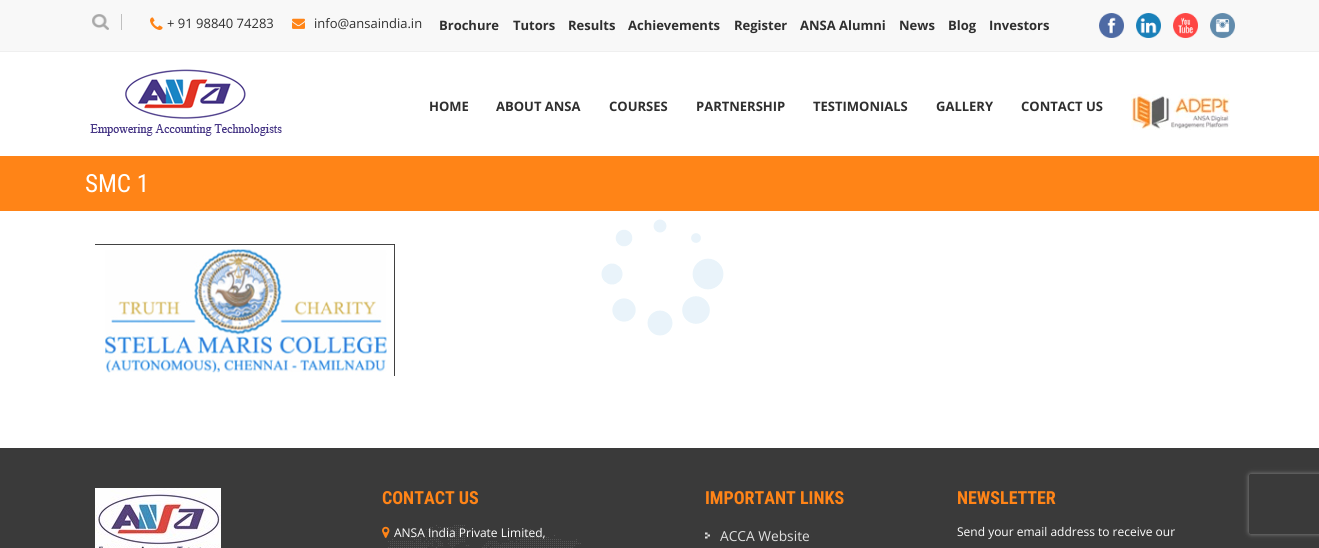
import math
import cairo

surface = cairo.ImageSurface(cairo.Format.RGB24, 1319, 548)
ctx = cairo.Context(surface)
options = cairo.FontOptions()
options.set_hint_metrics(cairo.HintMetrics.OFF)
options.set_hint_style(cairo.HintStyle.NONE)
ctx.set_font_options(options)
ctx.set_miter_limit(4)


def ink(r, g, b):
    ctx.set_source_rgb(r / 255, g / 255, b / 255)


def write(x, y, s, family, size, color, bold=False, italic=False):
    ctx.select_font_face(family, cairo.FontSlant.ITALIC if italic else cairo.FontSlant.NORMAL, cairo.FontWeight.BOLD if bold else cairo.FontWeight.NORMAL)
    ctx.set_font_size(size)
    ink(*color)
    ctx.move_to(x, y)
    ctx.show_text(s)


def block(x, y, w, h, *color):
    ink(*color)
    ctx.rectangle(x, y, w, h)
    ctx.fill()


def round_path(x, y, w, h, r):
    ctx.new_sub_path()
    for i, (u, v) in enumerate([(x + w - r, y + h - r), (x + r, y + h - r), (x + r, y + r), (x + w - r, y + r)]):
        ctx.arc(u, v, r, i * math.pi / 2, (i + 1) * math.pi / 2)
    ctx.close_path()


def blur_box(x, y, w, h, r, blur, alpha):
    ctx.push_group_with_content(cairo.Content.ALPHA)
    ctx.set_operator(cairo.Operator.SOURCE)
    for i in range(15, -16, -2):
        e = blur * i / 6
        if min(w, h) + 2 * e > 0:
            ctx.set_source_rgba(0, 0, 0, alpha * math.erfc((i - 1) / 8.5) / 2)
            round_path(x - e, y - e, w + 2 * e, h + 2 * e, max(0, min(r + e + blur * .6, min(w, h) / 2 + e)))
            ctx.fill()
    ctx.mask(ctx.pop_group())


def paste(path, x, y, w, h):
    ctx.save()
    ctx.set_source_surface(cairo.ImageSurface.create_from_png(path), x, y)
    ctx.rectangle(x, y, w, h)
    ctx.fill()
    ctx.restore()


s1 = dict(family="Open Sans", size=13, color=(47, 47, 47))
s2 = dict(family="Open Sans", size=13, color=(47, 47, 47), bold=True)
s3 = dict(family="Roboto Condensed", size=25, color=(255, 255, 255))
s4 = dict(family="Roboto Condensed", size=18, color=(255, 132, 23), bold=True)
s5 = dict(family="Open Sans", size=12, color=(255, 255, 255))
s6 = dict(family="Open Sans", size=13.75, color=(224, 224, 224))

ink(255, 255, 255)
ctx.paint()
block(0, 0, 1319, 51, 248, 248, 248)
block(0, 51, 1319, 1, 239, 239, 239)
paste("pic1.png", 92, 14, 17, 16)
block(121, 14, 1, 16, 192, 192, 192)
paste("pic2.png", 150, 17, 13, 13)
write(167, 28, "+ 91 98840 74283", **s1)
paste("pic3.png", 292, 18, 13, 11)
write(314, 28, "info@ansaindia.in", **s1)
write(439, 30, "Brochure", **s2)
write(513, 30, "Tutors", **s2)
write(568, 30, "Results", **s2)
write(628, 30, "Achievements", **s2)
write(734, 30, "Register", **s2)
write(800, 30, "ANSA Alumni", **s2)
write(899, 30, "News", **s2)
write(948, 30, "Blog", **s2)
write(989, 30, "Investors", **s2)
paste("pic4.png", 1099, 13, 25, 25)
paste("pic5.png", 1136, 13, 25, 25)
paste("pic6.png", 1173, 13, 25, 25)
paste("pic7.png", 1210, 13, 25, 25)
paste("pic8.png", 90, 69, 192, 67)
write(429, 111, "HOME", **s2)
write(496, 111, "ABOUT ANSA", **s2)
write(609, 111, "COURSES", **s2)
write(696, 111, "PARTNERSHIP", **s2)
write(813, 111, "TESTIMONIALS", **s2)
write(936, 111, "GALLERY", **s2)
write(1021, 111, "CONTACT US", **s2)
paste("pic9.png", 1131, 94, 99, 36)
block(0, 156, 1319, 55, 255, 132, 23)
write(85, 192, "SMC 1", **s3)
paste("pic10.png", 95, 244, 300, 132)
block(0, 448, 1319, 100, 58, 58, 58)
paste("pic11.png", 95, 488, 126, 60)
write(382, 504, "CONTACT US", **s4)
paste("pic12.png", 388, 525, 193, 23)
paste("pic13.png", 382, 526, 8, 12)
write(394, 537, "ANSA India Private Limited,", **s5)
write(705, 504, "IMPORTANT LINKS", **s4)
paste("pic14.png", 705, 532, 5, 7)
write(720, 541, "ACCA Website", **s6)
write(957, 504, "NEWSLETTER", **s4)
write(957, 536, "Send your email address to receive our", **s5)
paste("pic15.png", 601, 219, 123, 117)
ctx.save()
ctx.set_fill_rule(cairo.FillRule.EVEN_ODD)
ctx.new_path()
ctx.move_to(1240, 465)
ctx.line_to(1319, 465)
ctx.line_to(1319, 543)
ctx.line_to(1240, 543)
ctx.close_path()
ctx.move_to(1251, 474)
ctx.line_to(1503, 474)
ctx.curve_to(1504, 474, 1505, 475, 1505, 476)
ctx.line_to(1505, 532)
ctx.curve_to(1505, 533, 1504, 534, 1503, 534)
ctx.line_to(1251, 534)
ctx.curve_to(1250, 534, 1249, 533, 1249, 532)
ctx.line_to(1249, 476)
ctx.curve_to(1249, 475, 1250, 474, 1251, 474)
ctx.close_path()
ctx.clip()
ink(139, 139, 139)
blur_box(1249, 474, 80, 60, 2, 2.5, 1)
ctx.restore()
surface.write_to_png("screenshot.png")
